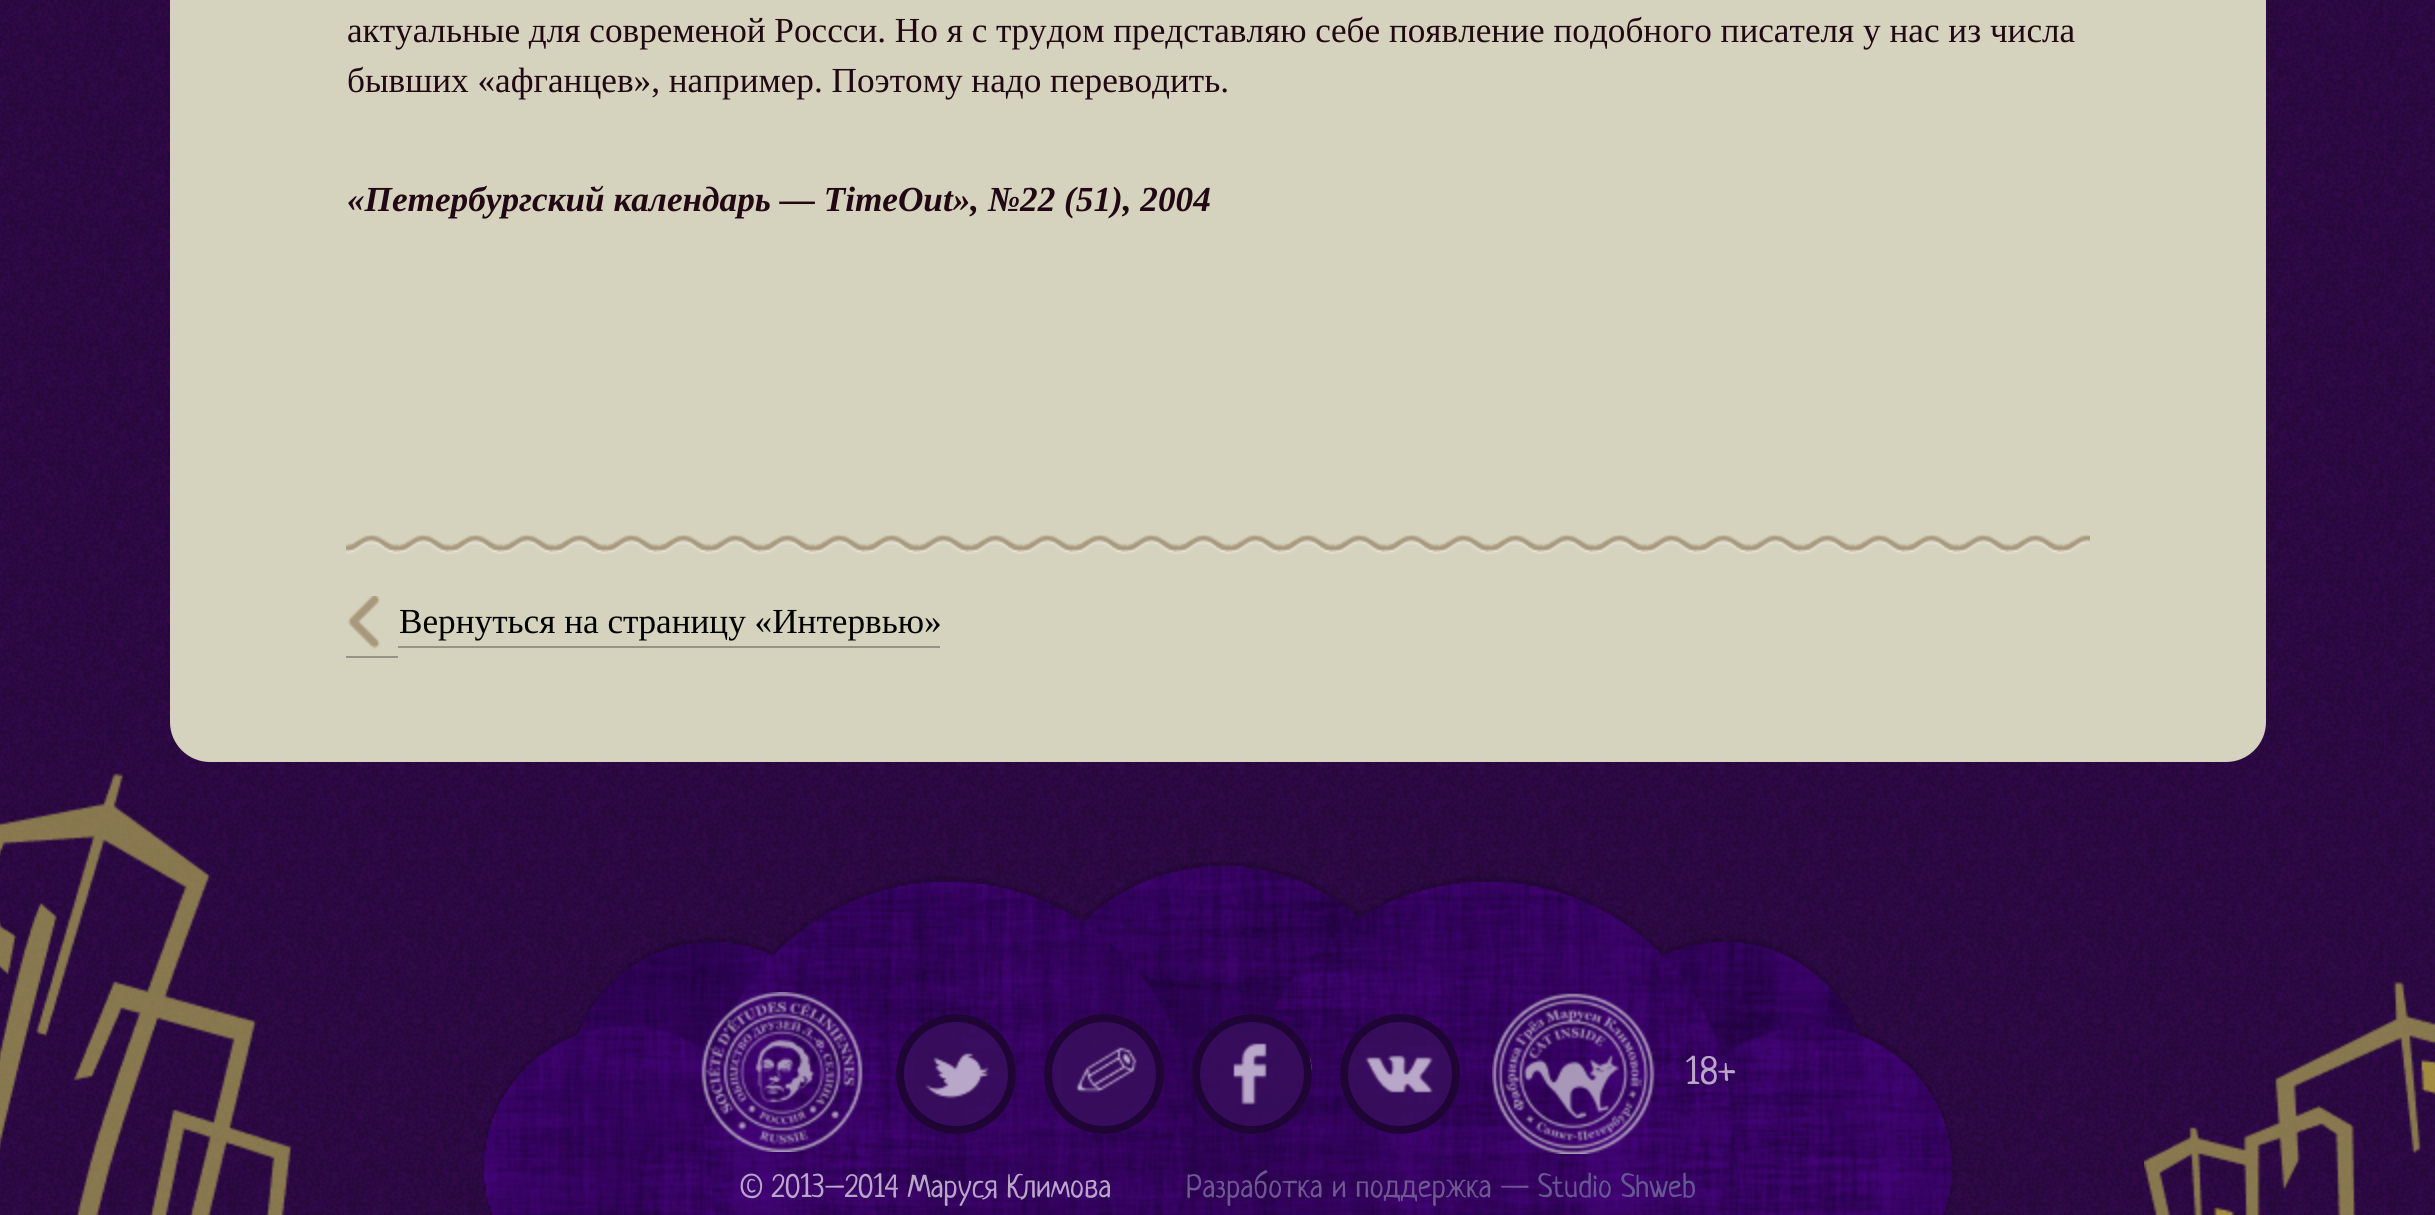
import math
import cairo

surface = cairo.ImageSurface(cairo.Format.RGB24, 2435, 1215)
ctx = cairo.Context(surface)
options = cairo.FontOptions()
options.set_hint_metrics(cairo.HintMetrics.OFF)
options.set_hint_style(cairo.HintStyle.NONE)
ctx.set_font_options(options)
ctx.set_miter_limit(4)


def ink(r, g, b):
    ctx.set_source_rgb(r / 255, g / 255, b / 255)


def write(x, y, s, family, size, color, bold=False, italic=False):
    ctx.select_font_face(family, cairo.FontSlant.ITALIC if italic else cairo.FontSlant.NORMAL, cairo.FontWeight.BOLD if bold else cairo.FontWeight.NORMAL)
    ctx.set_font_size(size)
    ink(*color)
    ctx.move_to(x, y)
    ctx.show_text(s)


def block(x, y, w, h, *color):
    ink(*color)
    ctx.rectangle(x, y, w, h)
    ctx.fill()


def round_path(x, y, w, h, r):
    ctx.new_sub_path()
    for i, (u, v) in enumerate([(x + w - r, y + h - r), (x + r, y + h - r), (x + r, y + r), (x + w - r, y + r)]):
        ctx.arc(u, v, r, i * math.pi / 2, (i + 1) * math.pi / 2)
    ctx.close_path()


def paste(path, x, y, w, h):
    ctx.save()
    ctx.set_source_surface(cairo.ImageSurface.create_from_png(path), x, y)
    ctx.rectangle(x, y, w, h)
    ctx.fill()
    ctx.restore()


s1 = dict(family="Liberation Serif", size=35.2, color=(34, 7, 21))
s2 = dict(family="Liberation Serif", size=35.2, color=(34, 7, 21), bold=True, italic=True)
s3 = dict(family="Liberation Serif", size=35.2, color=(0, 0, 0))
s4 = dict(family="Neucha", size=38, color=(184, 167, 200))
s5 = dict(family="Neucha", size=32, color=(184, 167, 200))
s6 = dict(family="Neucha", size=32, color=(111, 88, 146))
s7 = dict(family="Neucha", size=32, color=(102, 88, 146))

ink(255, 255, 255)
ctx.paint()
paste("pic1.png", 0, 0, 2435, 1215)
ink(213, 211, 189)
round_path(170, -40, 2096, 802, 40)
ctx.fill()
write(347, 42, "актуальные для современой Россси. Но я с трудом представляю себе появление подобного писателя у нас из числа", **s1)
write(347, 92, "бывших «афганцев», например. Поэтому надо переводить.", **s1)
write(347, 211, "«Петербургский календарь — TimeOut», №22 (51), 2004", **s2)
paste("pic2.png", 346, 534, 1744, 20)
block(346, 656, 52, 2, 149, 148, 132)
block(398, 646, 542, 2, 149, 148, 132)
paste("pic3.png", 347, 596, 33, 53)
write(399, 633, "Вернуться на страницу «Интервью»", **s3)
paste("pic4.png", 0, 773, 292, 442)
paste("pic5.png", 482, 862, 1474, 353)
paste("pic6.png", 701, 992, 162, 160)
ctx.set_source_rgba(0.224, 0.063, 0.365, 0.8)
ctx.arc(956, 1074, 60, 0, 2 * math.pi)
ctx.fill()
paste("pic7.png", 925, 1052, 64, 47)
ctx.arc(956, 1074, 56, 0, 2 * math.pi)
ink(31, 5, 54)
ctx.set_line_width(8)
ctx.stroke()
ctx.set_source_rgba(0.224, 0.063, 0.365, 0.8)
ctx.arc(1104, 1074, 60, 0, 2 * math.pi)
ctx.fill()
paste("pic8.png", 1075, 1047, 62, 46)
ctx.arc(1104, 1074, 56, 0, 2 * math.pi)
ink(31, 5, 54)
ctx.stroke()
ctx.set_source_rgba(0.224, 0.063, 0.365, 0.8)
ctx.arc(1252, 1074, 60, 0, 2 * math.pi)
ctx.fill()
paste("pic9.png", 1233, 1043, 79, 62)
ctx.arc(1252, 1074, 56, 0, 2 * math.pi)
ink(31, 5, 54)
ctx.stroke()
ctx.set_source_rgba(0.224, 0.063, 0.365, 0.8)
ctx.arc(1400, 1074, 60, 0, 2 * math.pi)
ctx.fill()
paste("pic10.png", 1365, 1055, 68, 38)
ctx.arc(1400, 1074, 56, 0, 2 * math.pi)
ink(31, 5, 54)
ctx.stroke()
paste("pic11.png", 1492, 993, 163, 161)
write(1686, 1084, "18+", **s4)
write(740, 1197, "© 2013–2014 Маруся Климова", **s5)
write(1186, 1197, "Разработка и поддержка —", **s6)
write(1538, 1197, "Studio Shweb", **s7)
paste("pic12.png", 2144, 981, 291, 234)
surface.write_to_png("screenshot.png")
